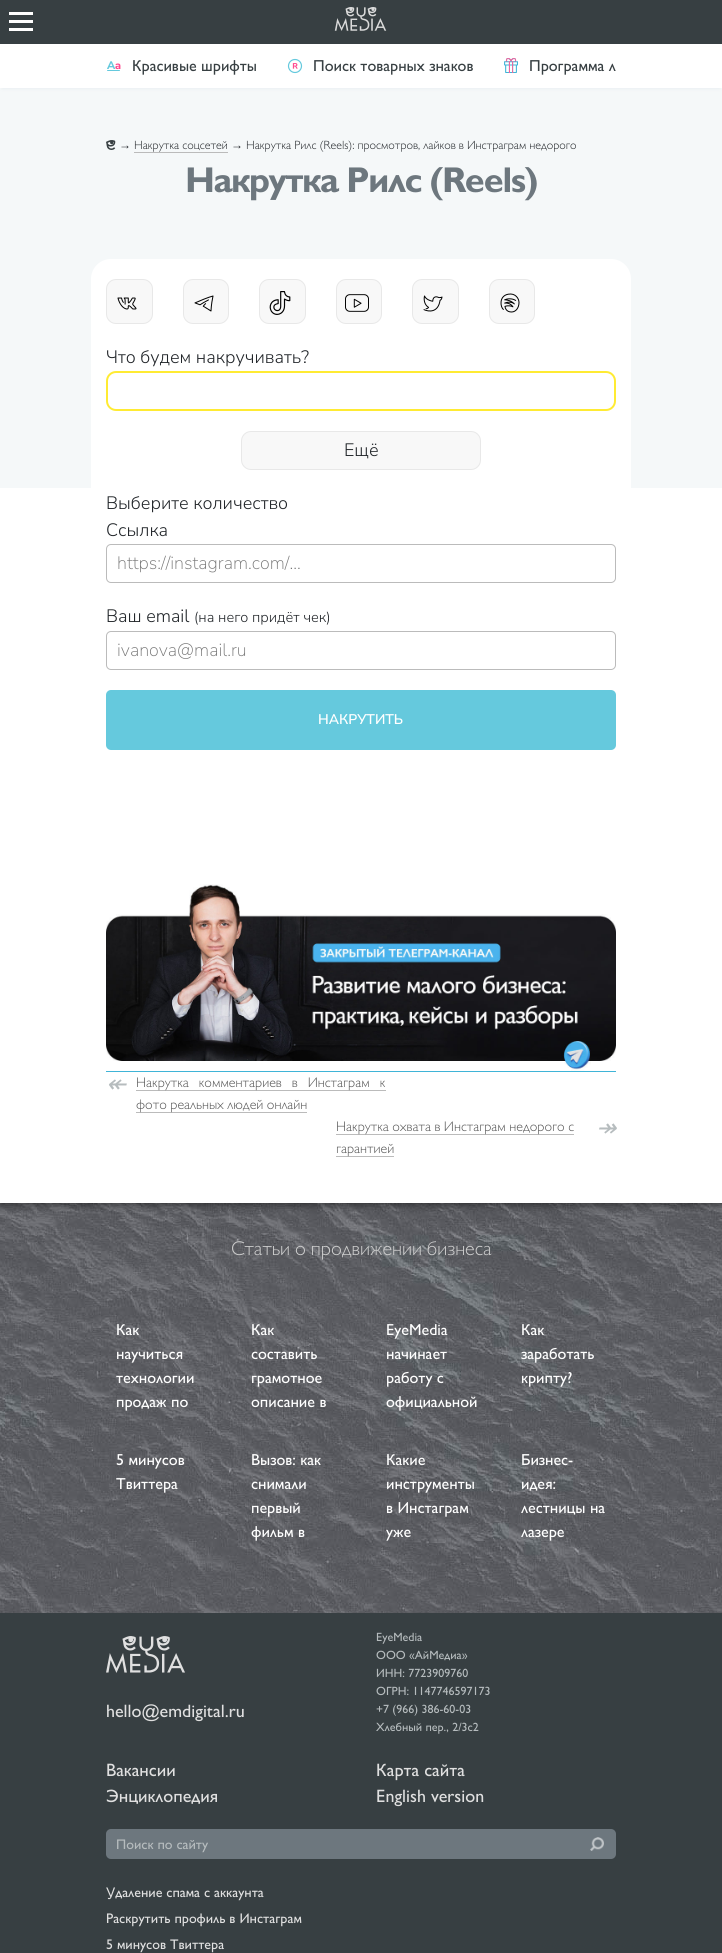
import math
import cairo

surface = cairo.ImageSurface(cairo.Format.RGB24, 722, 1953)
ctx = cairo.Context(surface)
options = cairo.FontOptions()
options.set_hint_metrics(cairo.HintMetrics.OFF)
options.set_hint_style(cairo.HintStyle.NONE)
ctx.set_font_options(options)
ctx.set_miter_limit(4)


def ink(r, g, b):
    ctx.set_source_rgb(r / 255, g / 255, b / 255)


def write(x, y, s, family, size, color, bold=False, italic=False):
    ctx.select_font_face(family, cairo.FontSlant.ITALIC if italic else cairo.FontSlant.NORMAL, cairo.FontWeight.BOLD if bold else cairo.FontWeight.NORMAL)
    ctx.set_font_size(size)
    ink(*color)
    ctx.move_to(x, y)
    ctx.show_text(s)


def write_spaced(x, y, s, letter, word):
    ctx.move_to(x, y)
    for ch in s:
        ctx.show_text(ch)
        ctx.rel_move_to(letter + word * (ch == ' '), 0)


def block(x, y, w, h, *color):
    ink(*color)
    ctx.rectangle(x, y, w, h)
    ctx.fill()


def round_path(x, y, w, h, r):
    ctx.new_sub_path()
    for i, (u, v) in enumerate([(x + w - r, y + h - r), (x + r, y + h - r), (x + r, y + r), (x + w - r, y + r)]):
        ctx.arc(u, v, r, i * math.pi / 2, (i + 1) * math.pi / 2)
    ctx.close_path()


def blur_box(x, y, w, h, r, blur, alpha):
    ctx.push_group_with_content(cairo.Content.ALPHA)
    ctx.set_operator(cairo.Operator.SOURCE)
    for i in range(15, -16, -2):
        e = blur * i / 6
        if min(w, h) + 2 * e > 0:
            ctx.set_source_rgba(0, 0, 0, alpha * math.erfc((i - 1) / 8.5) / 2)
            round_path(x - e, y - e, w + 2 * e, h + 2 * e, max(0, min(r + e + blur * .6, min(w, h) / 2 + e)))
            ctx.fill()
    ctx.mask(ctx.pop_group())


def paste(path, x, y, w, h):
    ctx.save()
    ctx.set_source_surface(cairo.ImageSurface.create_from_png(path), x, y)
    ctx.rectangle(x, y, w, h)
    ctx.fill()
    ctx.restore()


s1 = dict(family="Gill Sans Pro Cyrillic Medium", size=16, color=(55, 63, 66))
s2 = dict(family="Liberation Sans", size=12, color=(33, 37, 41))
s3 = dict(family="Gill Sans Pro Cyrillic Light", size=12, color=(33, 37, 41))
s4 = dict(family="Nunito Sans Light", size=18, color=(33, 37, 41))
s5 = dict(family="Nunito Sans ExtraLight", size=18, color=(117, 117, 117))
s6 = dict(family="Nunito Sans Light", size=14.5, color=(33, 37, 41))
s7 = dict(family="Nunito Sans SemiBold", size=14, color=(255, 255, 255))
s8 = dict(family="DejaVu Sans", size=24, color=(182, 188, 190), italic=True)
s9 = dict(family="Gill Sans Pro Cyrillic Light", size=14, color=(85, 85, 85))
s10 = dict(family="Gill Sans Pro Cyrillic Light", size=20, color=(204, 204, 204))
s11 = dict(family="Gill Sans Pro Cyrillic Medium", size=16, color=(255, 255, 255))
s12 = dict(family="Gill Sans Pro Cyrillic Medium", size=18, color=(224, 224, 224))
s13 = dict(family="Gill Sans Pro Cyrillic Medium", size=12, color=(182, 188, 190))
s14 = dict(family="Gill Sans Pro Cyrillic Medium", size=14, color=(182, 188, 190))
s15 = dict(family="Gill Sans Pro Cyrillic Medium", size=14, color=(224, 224, 224))

ink(255, 255, 255)
ctx.paint()
paste("pic14.png", 0, 1203, 722, 410)
ink(0, 0, 0)
blur_box(0, 88, 722, 1115, 0, 5, 0.7)
block(0, 88, 722, 400, 245, 248, 249)
ink(234, 240, 242)
blur_box(2, 49, 718, 40, 0, 1.5, 1)
block(0, 0, 722, 44, 55, 63, 66)
paste("pic1.png", 9, 12, 24, 19)
paste("pic2.png", 334, 7, 53, 24)
block(0, 47, 722, 41, 255, 255, 255)
paste("pic3.png", 107, 61, 14, 10)
write(132, 71, "Красивые шрифты", **s1)
paste("pic4.png", 287, 58, 16, 16)
write(313, 71, "Поиск товарных знаков", **s1)
paste("pic5.png", 504, 58, 14, 15)
write(529, 71, "Программа л", **s1)
block(0, 488, 722, 715, 255, 255, 255)
paste("pic6.png", 106, 140, 10, 10)
write(119, 149, "→", **s2)
write(134, 149, "Накрутка соцсетей", **s3)
block(134, 152, 94, 1, 187, 187, 187)
write(231, 149, "→", **s2)
write(246, 149, "Накрутка Рилс (Reels): просмотров, лайков в Инстраграм недорого", **s3)
ctx.select_font_face("Gill Sans Pro Cyrillic", cairo.FontSlant.NORMAL, cairo.FontWeight.BOLD)
ctx.set_font_size(36)
ink(109, 119, 126)
write_spaced(185, 192, "Накрутка Рилс (Reels)", -1.5, 0)
ink(255, 255, 255)
round_path(91, 259, 540, 625, 20)
ctx.fill()
ink(248, 248, 248)
round_path(106.5, 279.5, 46, 44, 9.5)
ctx.fill_preserve()
ink(232, 232, 232)
ctx.set_line_width(1)
ctx.stroke()
paste("pic7.png", 117, 297, 20, 13)
ink(248, 248, 248)
round_path(183.5, 279.5, 45, 44, 9.5)
ctx.fill_preserve()
ink(232, 232, 232)
ctx.stroke()
paste("pic8.png", 194, 295, 20, 17)
ink(248, 248, 248)
round_path(259.5, 279.5, 46, 44, 9.5)
ctx.fill_preserve()
ink(232, 232, 232)
ctx.stroke()
paste("pic9.png", 269, 291, 22, 24)
ink(248, 248, 248)
round_path(336.5, 279.5, 45, 44, 9.5)
ctx.fill_preserve()
ink(232, 232, 232)
ctx.stroke()
paste("pic10.png", 345, 294, 24, 18)
ink(248, 248, 248)
round_path(412.5, 279.5, 46, 44, 9.5)
ctx.fill_preserve()
ink(232, 232, 232)
ctx.stroke()
paste("pic11.png", 423, 295, 20, 17)
ink(248, 248, 248)
round_path(489.5, 279.5, 45, 44, 9.5)
ctx.fill_preserve()
ink(232, 232, 232)
ctx.stroke()
paste("pic12.png", 500, 293, 20, 20)
write(106, 363, "Что будем накручивать?", **s4)
round_path(107, 372, 508, 38, 9)
ink(255, 235, 51)
ctx.set_line_width(2)
ctx.stroke()
ink(248, 248, 248)
round_path(241.5, 431.5, 239, 38, 9.5)
ctx.fill_preserve()
ink(232, 232, 232)
ctx.set_line_width(1)
ctx.stroke()
write(344, 456, "Ещё", **s4)
write(106, 509, "Выберите количество", **s4)
write(106, 536, "Ссылка", **s4)
round_path(106.5, 544.5, 509, 38, 4.5)
ink(187, 187, 187)
ctx.stroke()
write(117, 569, "https://instagram.com/...", **s5)
write(106, 622, "Ваш email", **s4)
write(194, 622, "(на него придёт чек)", **s6)
round_path(106.5, 631.5, 509, 38, 4.5)
ink(187, 187, 187)
ctx.stroke()
write(117, 656, "ivanova@mail.ru", **s5)
ink(101, 201, 221)
round_path(106, 690, 510, 60, 5)
ctx.fill()
write(318, 724, "НАКРУТИТЬ", **s7)
block(106, 1071, 510, 1, 63, 180, 215)
paste("pic13.png", 106, 884, 510, 187)
write(106, 1092, "↞", **s8)
block(136, 1090, 250, 1, 187, 187, 187)
ctx.select_font_face("Gill Sans Pro Cyrillic Light")
ctx.set_font_size(14)
ink(85, 85, 85)
write_spaced(136, 1087, "Накрутка комментариев в Инстаграм к", 0, 6.5)
block(136, 1112, 171, 1, 187, 187, 187)
write(136, 1109, "фото реальных людей онлайн", **s9)
block(336, 1134, 238, 1, 187, 187, 187)
write(336, 1131, "Накрутка охвата в Инстаграм недорого с", **s9)
block(336, 1156, 58, 1, 187, 187, 187)
write(336, 1153, "гарантией", **s9)
write(596, 1136, "↠", **s8)
write(231, 1255, "Статьи о продвижении бизнеса", **s10)
write(116, 1335, "Как", **s11)
write(116, 1359, "научиться", **s11)
write(116, 1383, "технологии", **s11)
write(116, 1407, "продаж по", **s11)
write(251, 1335, "Как", **s11)
write(251, 1359, "составить", **s11)
write(251, 1383, "грамотное", **s11)
write(251, 1407, "описание в", **s11)
write(386, 1335, "EyeMedia", **s11)
write(386, 1359, "начинает", **s11)
write(386, 1383, "работу с", **s11)
write(386, 1407, "официальной", **s11)
write(521, 1335, "Как", **s11)
write(521, 1359, "заработать", **s11)
write(521, 1383, "крипту?", **s11)
write(116, 1465, "5 минусов", **s11)
write(116, 1489, "Твиттера", **s11)
write(251, 1465, "Вызов: как", **s11)
write(251, 1489, "снимали", **s11)
write(251, 1513, "первый", **s11)
write(251, 1537, "фильм в", **s11)
write(386, 1465, "Какие", **s11)
write(386, 1489, "инструменты", **s11)
write(386, 1513, "в Инстаграм", **s11)
write(386, 1537, "уже", **s11)
write(521, 1465, "Бизнес-", **s11)
write(521, 1489, "идея:", **s11)
write(521, 1513, "лестницы на", **s11)
write(521, 1537, "лазере", **s11)
block(0, 1613, 722, 340, 55, 63, 66)
paste("pic15.png", 106, 1636, 79, 37)
write(106, 1717, "hello@emdigital.ru", **s12)
write(376, 1641, "EyeMedia", **s13)
write(376, 1659, "ООО «АйМедиа»", **s13)
write(376, 1677, "ИНН: 7723909760", **s13)
write(376, 1695, "ОГРН: 1147746597173", **s13)
write(376, 1713, "+7 (966) 386-60-03", **s13)
write(376, 1731, "Хлебный пер., 2/3c2", **s13)
write(106, 1776, "Вакансии", **s12)
write(106, 1802, "Энциклопедия", **s12)
write(376, 1776, "Карта сайта", **s12)
write(376, 1802, "English version", **s12)
ink(109, 119, 126)
round_path(106, 1829, 510, 30, 5)
ctx.fill()
write(116, 1849, "Поиск по сайту", **s14)
paste("pic16.png", 590, 1837, 14, 14)
write(106, 1897, "Удаление спама с аккаунта", **s15)
write(106, 1923, "Раскрутить профиль в Инстаграм", **s15)
write(106, 1949, "5 минусов Твиттера", **s15)
surface.write_to_png("screenshot.png")
